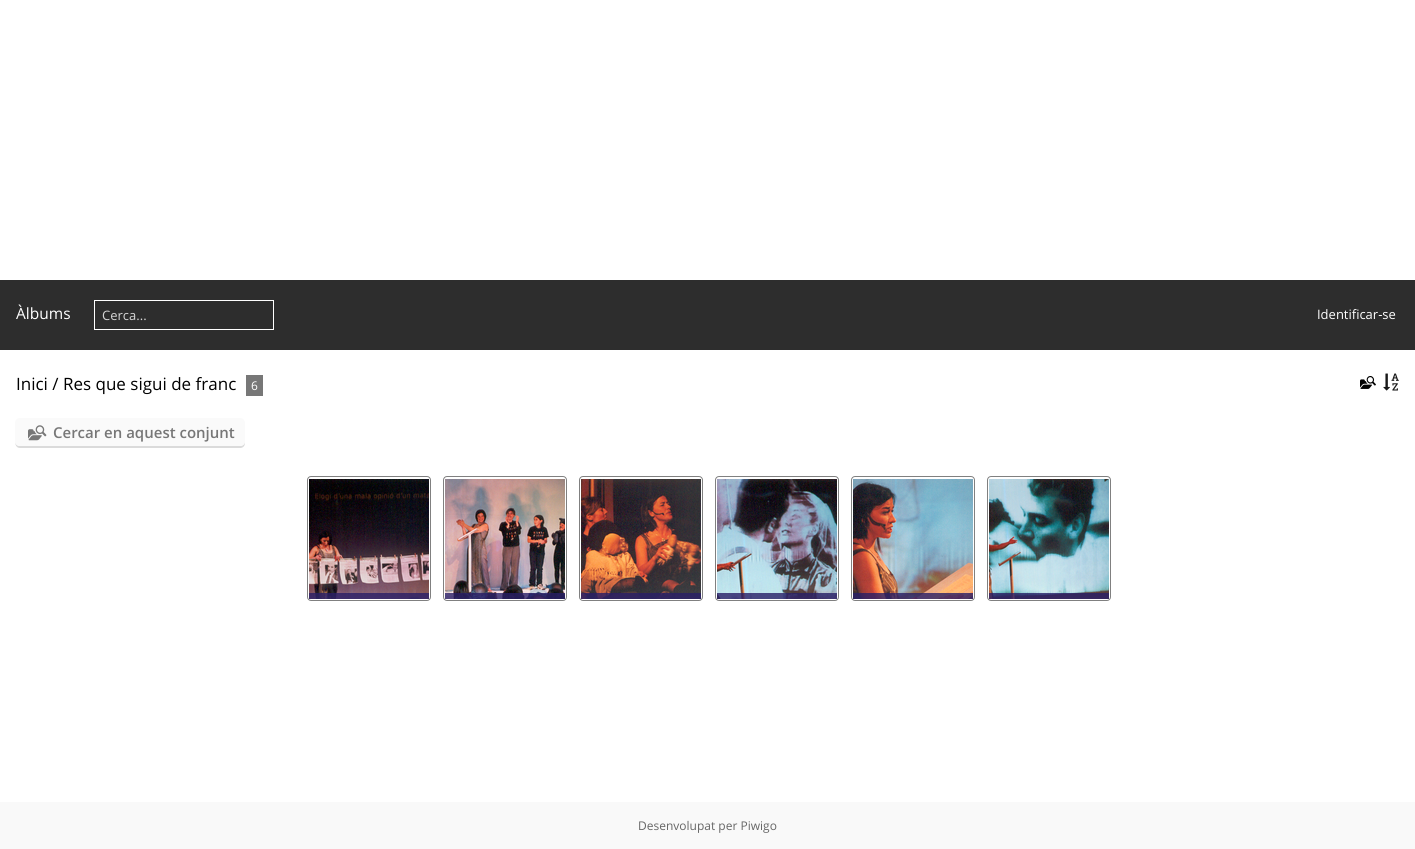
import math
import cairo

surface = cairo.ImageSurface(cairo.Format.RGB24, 1415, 849)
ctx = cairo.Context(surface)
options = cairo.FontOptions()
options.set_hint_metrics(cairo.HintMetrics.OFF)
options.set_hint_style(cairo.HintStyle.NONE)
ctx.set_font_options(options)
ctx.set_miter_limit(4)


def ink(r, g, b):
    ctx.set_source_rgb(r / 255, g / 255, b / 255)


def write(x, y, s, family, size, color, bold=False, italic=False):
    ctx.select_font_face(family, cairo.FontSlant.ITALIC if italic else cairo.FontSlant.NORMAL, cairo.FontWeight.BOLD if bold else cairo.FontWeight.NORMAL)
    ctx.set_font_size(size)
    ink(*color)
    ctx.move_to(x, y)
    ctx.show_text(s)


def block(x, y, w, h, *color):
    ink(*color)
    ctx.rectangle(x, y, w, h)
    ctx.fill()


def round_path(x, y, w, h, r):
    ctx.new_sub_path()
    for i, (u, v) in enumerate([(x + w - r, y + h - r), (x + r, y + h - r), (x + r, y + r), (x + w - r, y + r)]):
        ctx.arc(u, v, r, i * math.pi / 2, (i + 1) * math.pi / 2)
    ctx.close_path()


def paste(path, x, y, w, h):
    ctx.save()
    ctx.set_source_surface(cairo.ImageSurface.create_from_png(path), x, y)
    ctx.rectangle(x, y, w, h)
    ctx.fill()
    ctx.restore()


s1 = dict(family="Open Sans", size=15.5, color=(255, 255, 255))
s2 = dict(family="Open Sans", size=13, color=(214, 214, 214))
s3 = dict(family="Open Sans", size=13, color=(255, 255, 255))
s4 = dict(family="Open Sans", size=17, color=(0, 0, 0))
s5 = dict(family="Open Sans", size=12, color=(255, 255, 255))
s6 = dict(family="Open Sans SemiBold", size=15, color=(119, 119, 119))
s7 = dict(family="Open Sans", size=12, color=(102, 102, 102))

ink(255, 255, 255)
ctx.paint()
block(0, 280, 1415, 70, 45, 45, 45)
write(16, 319, "Àlbums", **s1)
ctx.rectangle(94.5, 300.5, 179, 29)
ctx.set_line_width(1)
ctx.stroke()
write(102, 320, "Cerca...", **s2)
write(1317, 319, "Identificar-se", **s3)
write(16, 390, "Inici / Res que sigui de franc", **s4)
block(246, 375, 17, 21, 119, 119, 119)
write(251, 390, "6", **s5)
paste("pic1.png", 1360, 376, 16, 13)
paste("pic2.png", 1383, 373, 16, 18)
ink(219, 219, 219)
ctx.new_path()
ctx.move_to(15, 441)
ctx.curve_to(15, 444, 16, 448, 20, 448)
ctx.line_to(241, 448)
ctx.curve_to(245, 447, 245, 444, 245, 441)
ctx.curve_to(245, 444, 243, 446, 240, 446)
ctx.line_to(20, 446)
ctx.curve_to(17, 446, 15, 444, 15, 441)
ctx.close_path()
ctx.fill()
ink(250, 250, 250)
round_path(15, 418, 230, 28, 5)
ctx.fill()
paste("pic3.png", 28, 425, 19, 16)
write(53, 438, "Cercar en aquest conjunt", **s6)
round_path(307.5, 476.5, 123, 124, 3.5)
ink(128, 128, 128)
ctx.stroke()
paste("pic4.png", 309, 479, 120, 120)
round_path(443.5, 476.5, 123, 124, 3.5)
ctx.stroke()
paste("pic5.png", 445, 479, 120, 120)
round_path(579.5, 476.5, 123, 124, 3.5)
ctx.stroke()
paste("pic6.png", 581, 479, 120, 120)
round_path(715.5, 476.5, 123, 124, 3.5)
ctx.stroke()
paste("pic7.png", 717, 479, 120, 120)
round_path(851.5, 476.5, 123, 124, 3.5)
ctx.stroke()
paste("pic8.png", 853, 479, 120, 120)
round_path(987.5, 476.5, 123, 124, 3.5)
ctx.stroke()
paste("pic9.png", 989, 479, 120, 120)
block(0, 802, 1415, 47, 249, 249, 249)
write(638, 830, "Desenvolupat per Piwigo", **s7)
surface.write_to_png("screenshot.png")
